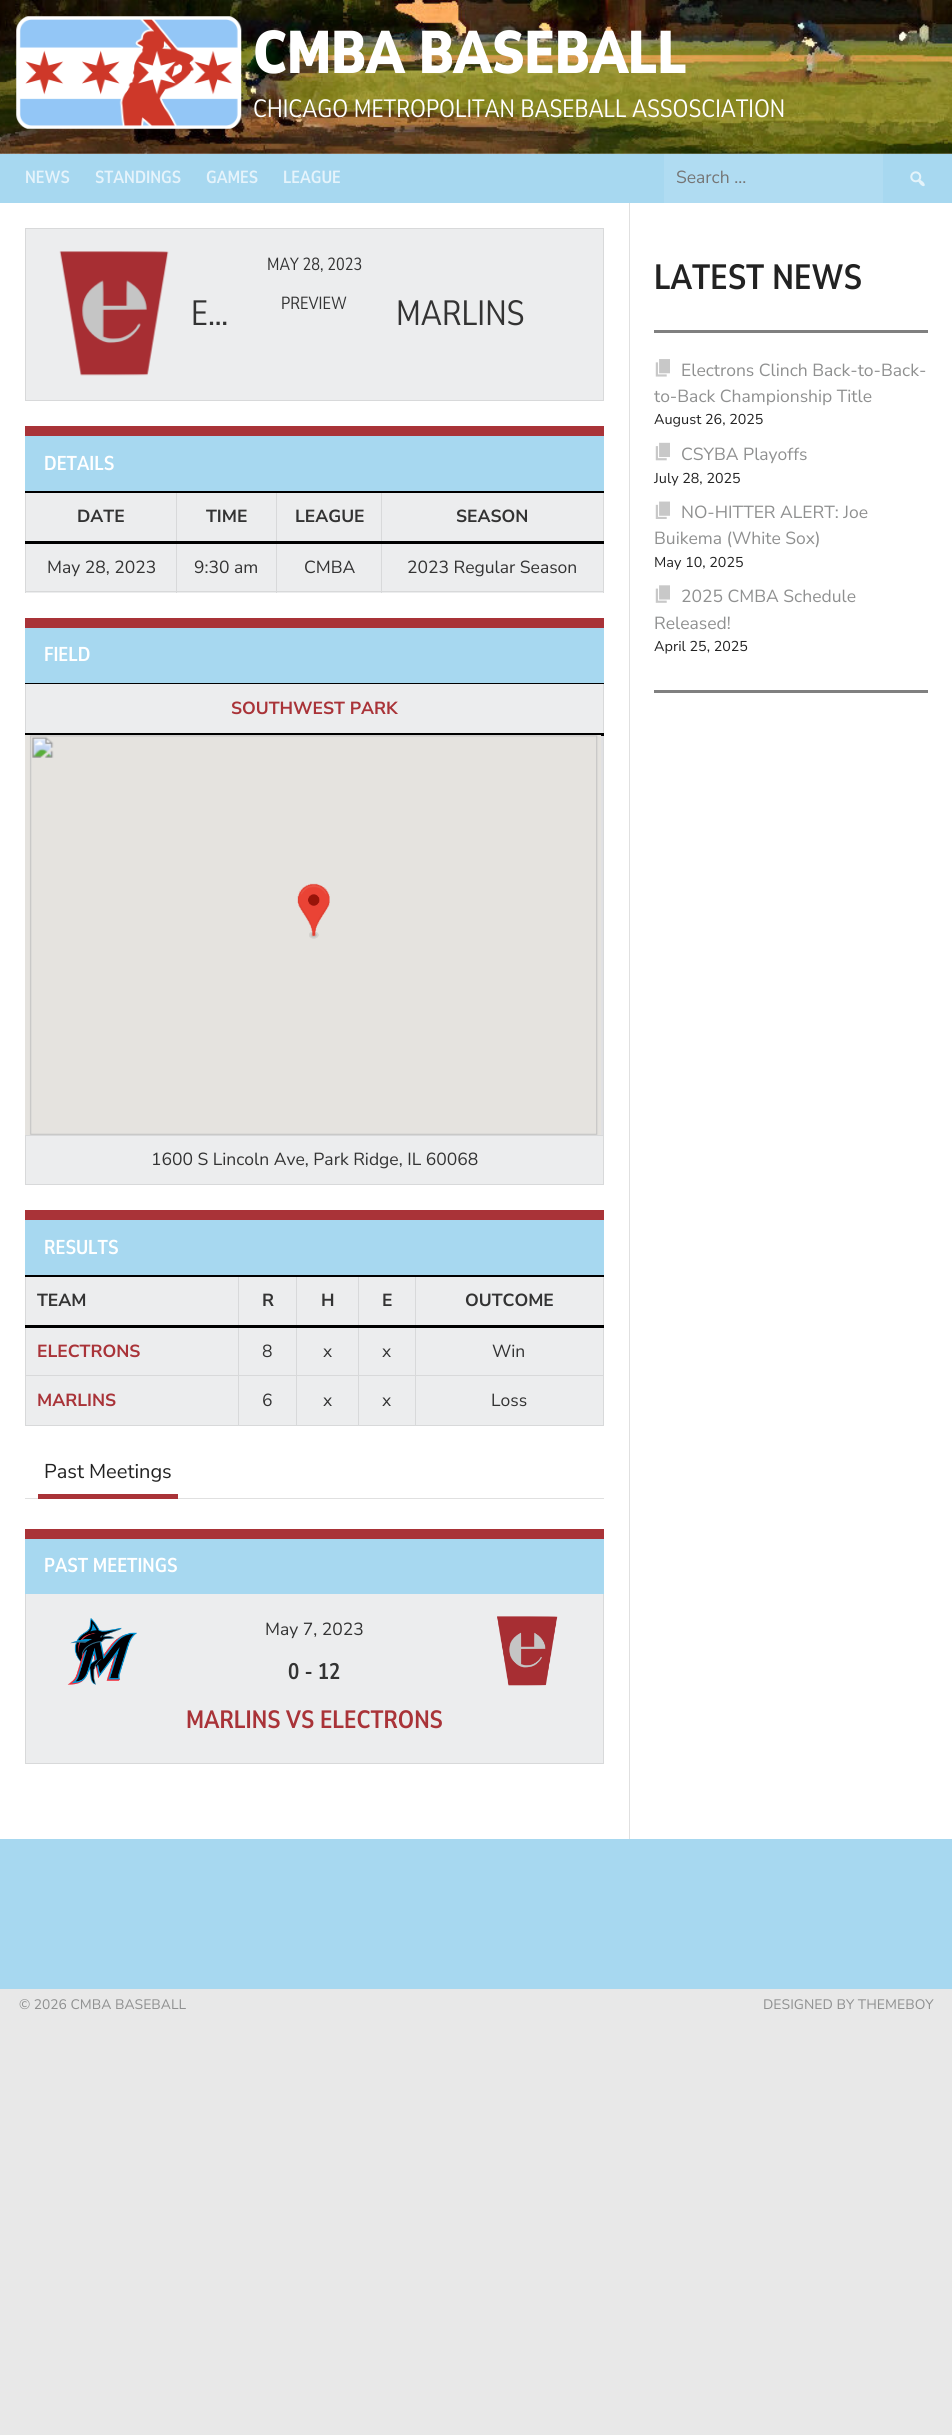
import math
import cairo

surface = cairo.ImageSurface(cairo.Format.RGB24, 952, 2435)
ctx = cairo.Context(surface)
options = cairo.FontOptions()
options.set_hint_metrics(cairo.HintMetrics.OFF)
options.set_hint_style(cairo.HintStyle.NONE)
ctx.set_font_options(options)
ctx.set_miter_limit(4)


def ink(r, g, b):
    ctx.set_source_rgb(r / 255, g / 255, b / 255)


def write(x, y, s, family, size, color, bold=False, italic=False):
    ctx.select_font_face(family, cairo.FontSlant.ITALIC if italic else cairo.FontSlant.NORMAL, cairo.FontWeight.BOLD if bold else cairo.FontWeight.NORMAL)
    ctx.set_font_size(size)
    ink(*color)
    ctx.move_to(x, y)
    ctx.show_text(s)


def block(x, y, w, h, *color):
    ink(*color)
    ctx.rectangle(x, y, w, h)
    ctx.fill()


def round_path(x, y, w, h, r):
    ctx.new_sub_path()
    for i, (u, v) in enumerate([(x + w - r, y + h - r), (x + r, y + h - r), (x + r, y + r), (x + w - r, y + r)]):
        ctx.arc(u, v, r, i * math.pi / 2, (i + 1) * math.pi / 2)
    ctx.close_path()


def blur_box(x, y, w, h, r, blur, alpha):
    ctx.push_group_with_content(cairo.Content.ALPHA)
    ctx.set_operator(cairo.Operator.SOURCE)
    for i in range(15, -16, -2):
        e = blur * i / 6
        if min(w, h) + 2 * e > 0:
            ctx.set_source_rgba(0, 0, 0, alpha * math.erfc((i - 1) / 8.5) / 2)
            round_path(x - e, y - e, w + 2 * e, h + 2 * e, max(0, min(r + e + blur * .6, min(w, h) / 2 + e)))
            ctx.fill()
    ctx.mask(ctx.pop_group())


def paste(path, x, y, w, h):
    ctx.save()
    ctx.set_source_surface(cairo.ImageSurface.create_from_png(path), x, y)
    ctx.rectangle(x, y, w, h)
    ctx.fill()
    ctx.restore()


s1 = dict(family="Nunito Sans Black", size=60, color=(255, 255, 255))
s2 = dict(family="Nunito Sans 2", size=25, color=(255, 255, 255))
s3 = dict(family="Nunito Sans", size=17.5, color=(229, 243, 251), bold=True)
s4 = dict(family="Nunito Sans", size=17.5, color=(117, 117, 117))
s5 = dict(family="Nunito Sans 2", size=17.5, color=(51, 51, 51))
s6 = dict(family="Nunito Sans 2", size=35, color=(51, 51, 51))
s7 = dict(family="Nunito Sans", size=20, color=(255, 255, 255), bold=True)
s8 = dict(family="Nunito Sans 2", size=17.5, color=(51, 51, 51), bold=True)
s9 = dict(family="Nunito Sans", size=17.5, color=(51, 51, 51))
s10 = dict(family="Nunito Sans 2", size=17.5, color=(169, 51, 56), bold=True)
s11 = dict(family="Nunito Sans", size=20, color=(34, 34, 34))
s12 = dict(family="Nunito Sans", size=22.5, color=(51, 51, 51), bold=True)
s13 = dict(family="Nunito Sans", size=25, color=(169, 51, 56), bold=True)
s14 = dict(family="Nunito Sans", size=35, color=(34, 34, 34), bold=True)
s15 = dict(family="Nunito Sans", size=17.5, color=(143, 144, 144))
s16 = dict(family="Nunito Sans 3", size=14.25, color=(34, 34, 34))
s17 = dict(family="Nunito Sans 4", size=13.75, color=(143, 144, 144))

ink(232, 232, 232)
ctx.paint()
paste("pic1.png", 0, 0, 952, 154)
ctx.save()
ctx.set_fill_rule(cairo.FillRule.EVEN_ODD)
ctx.new_path()
ctx.move_to(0, 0)
ctx.line_to(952, 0)
ctx.line_to(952, 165)
ctx.line_to(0, 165)
ctx.close_path()
ctx.move_to(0, 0)
ctx.line_to(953, 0)
ctx.line_to(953, 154)
ctx.line_to(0, 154)
ctx.close_path()
ctx.clip()
ink(0, 0, 0)
blur_box(0, 4, 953, 154, 0, 2, 0.2)
ctx.restore()
paste("pic2.png", 16, 16, 226, 113)
write(253, 73, "CMBA BASEBALL", **s1)
write(253, 117, "CHICAGO METROPOLITAN BASEBALL ASSOSCIATION", **s2)
block(0, 154, 952, 49, 167, 216, 240)
write(25, 183, "NEWS", **s3)
write(95, 183, "STANDINGS", **s3)
write(206, 183, "GAMES", **s3)
write(283, 183, "LEAGUE", **s3)
block(664, 154, 219, 49, 176, 220, 242)
write(676, 183, "Search …", **s4)
paste("pic3.png", 910, 171, 15, 16)
block(0, 203, 952, 1636, 255, 255, 255)
ink(224, 224, 224)
ctx.new_path()
ctx.move_to(1, 1839)
ctx.line_to(630, 1839)
ctx.line_to(630, 203)
ctx.line_to(629, 203)
ctx.line_to(629, 1839)
ctx.close_path()
ctx.fill()
block(26, 229, 577, 171, 236, 237, 238)
block(25, 228, 579, 1, 216, 217, 218)
block(603, 228, 1, 173, 216, 217, 218)
block(25, 400, 579, 1, 216, 217, 218)
block(25, 228, 1, 173, 216, 217, 218)
write(267, 270, "MAY 28, 2023", **s5)
paste("pic4.png", 59, 251, 110, 125)
write(191, 325, "E…", **s6)
write(281, 309, "PREVIEW", **s5)
write(396, 325, "MARLINS", **s6)
block(603, 490, 1, 103, 216, 217, 218)
block(26, 493, 577, 100, 236, 237, 238)
block(25, 591, 579, 1, 216, 217, 218)
block(25, 490, 1, 103, 216, 217, 218)
block(25, 436, 579, 55, 167, 216, 240)
block(25, 426, 579, 10, 169, 51, 56)
write(44, 470, "DETAILS", **s7)
write(77, 522, "DATE", **s8)
write(206, 522, "TIME", **s8)
write(295, 522, "LEAGUE", **s8)
block(176, 491, 1, 102, 216, 217, 218)
block(276, 491, 1, 102, 216, 217, 218)
block(381, 491, 1, 102, 216, 217, 218)
block(25, 491, 579, 2, 0, 0, 0)
block(25, 541, 579, 3, 0, 0, 0)
write(456, 522, "SEASON", **s8)
write(47, 573, "May 28, 2023", **s9)
write(194, 573, "9:30 am", **s9)
write(304, 573, "CMBA", **s9)
write(407, 573, "2023 Regular Season", **s9)
block(603, 681, 1, 504, 216, 217, 218)
block(25, 1184, 579, 1, 216, 217, 218)
block(25, 681, 1, 504, 216, 217, 218)
block(25, 628, 579, 55, 167, 216, 240)
block(25, 618, 579, 10, 169, 51, 56)
write(44, 661, "FIELD", **s7)
block(26, 684, 577, 500, 236, 237, 238)
block(25, 683, 579, 1, 0, 0, 0)
block(25, 733, 579, 3, 0, 0, 0)
write(231, 714, "SOUTHWEST PARK", **s10)
block(601, 736, 2, 399, 224, 224, 227)
paste("pic5.png", 25, 735, 577, 400)
paste("pic6.png", 297, 883, 33, 56)
block(25, 1135, 579, 1, 216, 217, 218)
write(151, 1165, "1600 S Lincoln Ave, Park Ridge, IL 60068", **s9)
block(603, 1274, 1, 152, 216, 217, 218)
block(25, 1425, 579, 1, 216, 217, 218)
block(25, 1274, 1, 152, 216, 217, 218)
block(25, 1220, 579, 55, 167, 216, 240)
block(25, 1210, 579, 10, 169, 51, 56)
write(44, 1254, "RESULTS", **s7)
block(26, 1277, 577, 148, 236, 237, 238)
write(37, 1306, "TEAM", **s8)
write(262, 1306, "R", **s8)
write(321, 1306, "H", **s8)
write(382, 1306, "E", **s8)
block(415, 1375, 189, 1, 216, 217, 218)
block(415, 1375, 1, 51, 216, 217, 218)
block(358, 1375, 58, 1, 216, 217, 218)
block(358, 1375, 1, 51, 216, 217, 218)
block(296, 1375, 63, 1, 216, 217, 218)
block(296, 1375, 1, 51, 216, 217, 218)
block(238, 1375, 60, 1, 216, 217, 218)
block(238, 1375, 1, 51, 216, 217, 218)
block(25, 1375, 214, 1, 216, 217, 218)
block(238, 1275, 1, 101, 216, 217, 218)
block(296, 1275, 1, 101, 216, 217, 218)
block(358, 1275, 1, 101, 216, 217, 218)
block(415, 1275, 1, 101, 216, 217, 218)
block(25, 1275, 579, 2, 0, 0, 0)
block(25, 1325, 579, 3, 0, 0, 0)
write(465, 1306, "OUTCOME", **s8)
write(37, 1357, "ELECTRONS", **s10)
write(262, 1357, "8", **s9)
write(323, 1357, "x", **s9)
write(382, 1357, "x", **s9)
write(492, 1357, "Win", **s9)
write(37, 1406, "MARLINS", **s10)
write(262, 1406, "6", **s9)
write(323, 1406, "x", **s9)
write(382, 1406, "x", **s9)
write(491, 1406, "Loss", **s9)
block(25, 1498, 579, 1, 224, 224, 224)
block(38, 1494, 140, 5, 169, 51, 56)
write(44, 1478, "Past Meetings", **s11)
block(603, 1593, 1, 171, 216, 217, 218)
block(25, 1763, 579, 1, 216, 217, 218)
block(25, 1593, 1, 171, 216, 217, 218)
block(25, 1539, 579, 55, 167, 216, 240)
block(25, 1529, 579, 10, 169, 51, 56)
write(44, 1572, "PAST MEETINGS", **s7)
block(26, 1594, 577, 169, 236, 237, 238)
paste("pic7.png", 67, 1618, 70, 67)
write(265, 1635, "May 7, 2023", **s9)
paste("pic8.png", 497, 1616, 61, 70)
write(288, 1679, "0 - 12", **s12)
write(186, 1728, "MARLINS VS ELECTRONS", **s13)
write(654, 289, "LATEST NEWS", **s14)
block(654, 330, 274, 3, 128, 128, 128)
paste("pic9.png", 655, 359, 15, 18)
write(681, 376, "Electrons Clinch Back-to-Back-", **s15)
write(654, 402, "to-Back Championship Title", **s15)
write(654, 424, "August 26, 2025", **s16)
paste("pic10.png", 655, 442, 15, 19)
write(681, 460, "CSYBA Playoffs", **s15)
write(654, 483, "July 28, 2025", **s16)
paste("pic11.png", 655, 501, 15, 18)
write(681, 518, "NO-HITTER ALERT: Joe", **s15)
write(654, 544, "Buikema (White Sox)", **s15)
write(654, 567, "May 10, 2025", **s16)
paste("pic12.png", 655, 585, 15, 18)
write(681, 602, "2025 CMBA Schedule", **s15)
write(654, 629, "Released!", **s15)
write(654, 651, "April 25, 2025", **s16)
block(654, 690, 274, 3, 128, 128, 128)
block(0, 1839, 952, 150, 167, 216, 240)
write(19, 2009, "© 2026 CMBA BASEBALL", **s17)
write(763, 2009, "DESIGNED BY THEMEBOY", **s17)
surface.write_to_png("screenshot.png")
